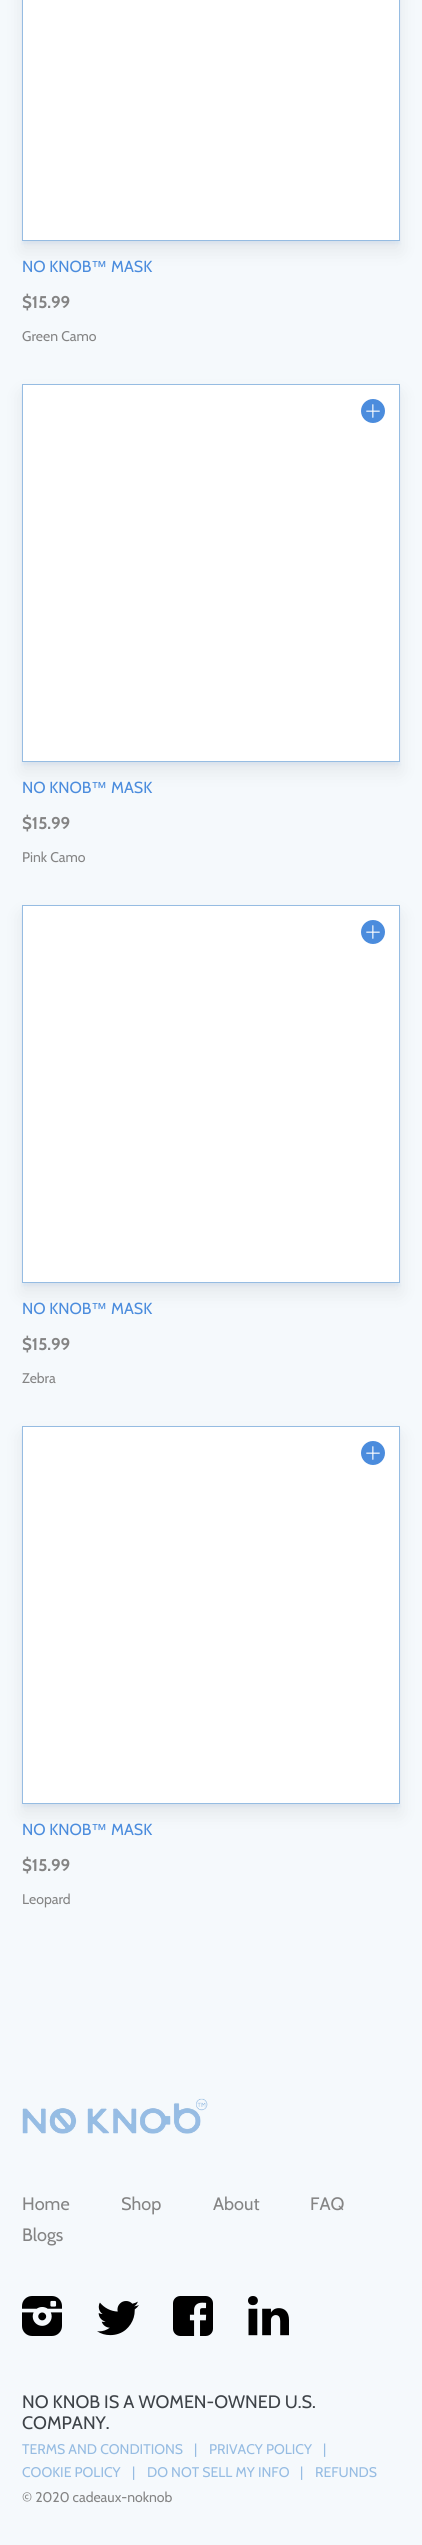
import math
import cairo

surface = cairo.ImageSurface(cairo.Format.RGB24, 422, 2545)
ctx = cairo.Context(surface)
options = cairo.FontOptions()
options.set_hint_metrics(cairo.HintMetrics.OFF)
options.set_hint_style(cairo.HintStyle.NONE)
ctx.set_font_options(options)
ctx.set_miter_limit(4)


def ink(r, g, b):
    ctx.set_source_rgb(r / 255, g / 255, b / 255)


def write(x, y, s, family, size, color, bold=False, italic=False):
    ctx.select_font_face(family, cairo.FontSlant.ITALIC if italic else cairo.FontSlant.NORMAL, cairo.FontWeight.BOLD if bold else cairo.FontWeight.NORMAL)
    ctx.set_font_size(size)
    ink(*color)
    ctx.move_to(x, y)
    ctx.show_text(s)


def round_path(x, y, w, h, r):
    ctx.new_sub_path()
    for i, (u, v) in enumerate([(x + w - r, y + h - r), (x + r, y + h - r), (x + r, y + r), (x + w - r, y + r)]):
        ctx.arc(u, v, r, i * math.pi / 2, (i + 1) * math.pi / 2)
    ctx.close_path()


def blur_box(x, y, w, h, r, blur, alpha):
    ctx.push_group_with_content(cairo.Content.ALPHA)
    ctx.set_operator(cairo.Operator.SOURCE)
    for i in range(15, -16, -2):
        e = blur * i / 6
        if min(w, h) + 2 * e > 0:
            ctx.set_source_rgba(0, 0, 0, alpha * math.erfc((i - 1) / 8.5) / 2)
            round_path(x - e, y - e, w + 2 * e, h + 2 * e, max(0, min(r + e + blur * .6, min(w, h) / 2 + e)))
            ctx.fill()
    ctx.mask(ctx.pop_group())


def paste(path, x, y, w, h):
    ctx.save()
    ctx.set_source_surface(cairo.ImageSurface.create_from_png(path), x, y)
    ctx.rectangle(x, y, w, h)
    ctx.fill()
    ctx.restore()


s1 = dict(family="Cabin", size=16, color=(75, 140, 221))
s2 = dict(family="Liberation Sans", size=16, color=(75, 140, 221))
s3 = dict(family="Cabin", size=17, color=(132, 132, 132), bold=True)
s4 = dict(family="Cabin", size=14, color=(132, 132, 132))
s5 = dict(family="Cabin", size=18, color=(132, 132, 132))
s6 = dict(family="Cabin", size=18, color=(62, 67, 72))
s7 = dict(family="Cabin", size=14, color=(150, 188, 226))

ink(245, 249, 252)
ctx.paint()
ink(0, 0, 0)
blur_box(22, -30, 378, 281, 0, 10, 0.07)
ink(75, 140, 221)
blur_box(22, -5, 378, 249, 0, 1.5, 0.09)
ink(255, 255, 255)
ctx.rectangle(22.5, -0.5, 377, 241)
ctx.fill_preserve()
ink(150, 188, 226)
ctx.set_line_width(1)
ctx.stroke()
write(22, 272, "NO KNOB", **s1)
write(91, 272, "™", **s2)
write(111, 272, "MASK", **s1)
write(22, 308, "$15.99", **s3)
write(22, 341, "Green Camo", **s4)
ink(0, 0, 0)
blur_box(22, 394, 378, 378, 0, 10, 0.07)
ink(75, 140, 221)
blur_box(22, 387, 378, 378, 0, 1.5, 0.09)
ink(255, 255, 255)
ctx.rectangle(22.5, 384.5, 377, 377)
ctx.fill_preserve()
ink(150, 188, 226)
ctx.stroke()
ink(75, 140, 221)
ctx.arc(373, 411, 12, 0, 2 * math.pi)
ctx.fill()
paste("pic1.png", 366, 404, 14, 14)
write(22, 793, "NO KNOB", **s1)
write(91, 793, "™", **s2)
write(111, 793, "MASK", **s1)
write(22, 829, "$15.99", **s3)
write(22, 862, "Pink Camo", **s4)
ink(0, 0, 0)
blur_box(22, 915, 378, 378, 0, 10, 0.07)
ink(75, 140, 221)
blur_box(22, 908, 378, 378, 0, 1.5, 0.09)
ink(255, 255, 255)
ctx.rectangle(22.5, 905.5, 377, 377)
ctx.fill_preserve()
ink(150, 188, 226)
ctx.stroke()
ink(75, 140, 221)
ctx.arc(373, 932, 12, 0, 2 * math.pi)
ctx.fill()
paste("pic1.png", 366, 925, 14, 14)
write(22, 1314, "NO KNOB", **s1)
write(91, 1314, "™", **s2)
write(111, 1314, "MASK", **s1)
write(22, 1350, "$15.99", **s3)
write(22, 1383, "Zebra", **s4)
ink(0, 0, 0)
blur_box(22, 1436, 378, 378, 0, 10, 0.07)
ink(75, 140, 221)
blur_box(22, 1429, 378, 378, 0, 1.5, 0.09)
ink(255, 255, 255)
ctx.rectangle(22.5, 1426.5, 377, 377)
ctx.fill_preserve()
ink(150, 188, 226)
ctx.stroke()
ink(75, 140, 221)
ctx.arc(373, 1453, 12, 0, 2 * math.pi)
ctx.fill()
paste("pic1.png", 366, 1446, 14, 14)
write(22, 1835, "NO KNOB", **s1)
write(91, 1835, "™", **s2)
write(111, 1835, "MASK", **s1)
write(22, 1871, "$15.99", **s3)
write(22, 1904, "Leopard", **s4)
paste("pic2.png", 22, 2098, 186, 36)
write(22, 2210, "Home", **s5)
write(121, 2210, "Shop", **s5)
write(213, 2210, "About", **s5)
write(310, 2210, "FAQ", **s5)
write(22, 2241, "Blogs", **s5)
paste("pic3.png", 22, 2296, 40, 40)
paste("pic4.png", 97, 2301, 42, 35)
paste("pic5.png", 173, 2296, 40, 40)
paste("pic6.png", 248, 2296, 41, 40)
write(22, 2408, "NO KNOB IS A WOMEN-OWNED U.S.", **s6)
write(22, 2429, "COMPANY.", **s6)
write(22, 2454, "TERMS AND CONDITIONS", **s7)
write(194, 2454, "|", **s7)
write(209, 2454, "PRIVACY POLICY", **s7)
write(323, 2454, "|", **s7)
write(22, 2477, "COOKIE POLICY", **s7)
write(132, 2477, "|", **s7)
write(147, 2477, "DO NOT SELL MY INFO", **s7)
write(300, 2477, "|", **s7)
write(315, 2477, "REFUNDS", **s7)
write(22, 2502, "© 2020 cadeaux-noknob", **s4)
surface.write_to_png("screenshot.png")
